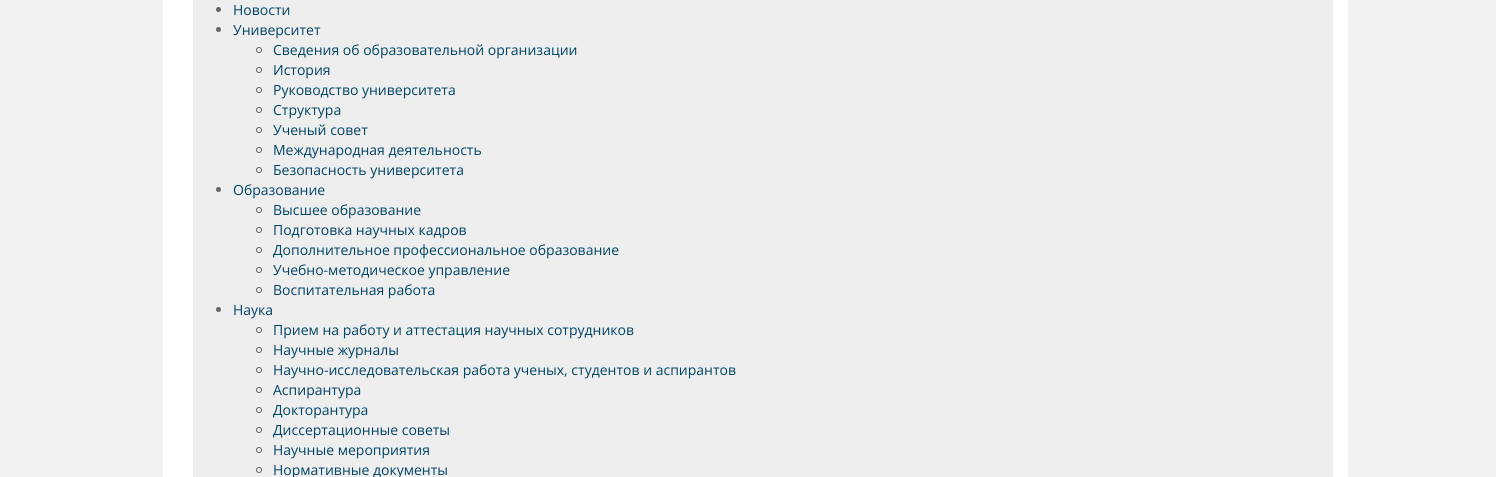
import math
import cairo

surface = cairo.ImageSurface(cairo.Format.RGB24, 1496, 477)
ctx = cairo.Context(surface)
options = cairo.FontOptions()
options.set_hint_metrics(cairo.HintMetrics.OFF)
options.set_hint_style(cairo.HintStyle.NONE)
ctx.set_font_options(options)
ctx.set_miter_limit(4)


def ink(r, g, b):
    ctx.set_source_rgb(r / 255, g / 255, b / 255)


def write(x, y, s, family, size, color, bold=False, italic=False):
    ctx.select_font_face(family, cairo.FontSlant.ITALIC if italic else cairo.FontSlant.NORMAL, cairo.FontWeight.BOLD if bold else cairo.FontWeight.NORMAL)
    ctx.set_font_size(size)
    ink(*color)
    ctx.move_to(x, y)
    ctx.show_text(s)


def block(x, y, w, h, *color):
    ink(*color)
    ctx.rectangle(x, y, w, h)
    ctx.fill()


s1 = dict(family="Open Sans", size=14, color=(1, 68, 100))

ink(242, 242, 242)
ctx.paint()
block(163, 0, 1185, 477, 255, 255, 255)
block(193, 0, 1140, 477, 238, 238, 238)
ink(102, 102, 102)
ctx.arc(218.5, 9.5, 2.5, 0, 2 * math.pi)
ctx.fill()
write(233, 15, "Новости", **s1)
ink(102, 102, 102)
ctx.new_path()
ctx.arc(218.5, 29.5, 2.5, 0, 2 * math.pi)
ctx.fill()
write(233, 35, "Университет", **s1)
ctx.new_path()
ctx.arc(259, 50, 2.5, 0, 2 * math.pi)
ink(102, 102, 102)
ctx.set_line_width(1)
ctx.stroke()
write(273, 55, "Сведения об образовательной организации", **s1)
ctx.new_path()
ctx.arc(259, 70, 2.5, 0, 2 * math.pi)
ink(102, 102, 102)
ctx.stroke()
write(273, 75, "История", **s1)
ctx.new_path()
ctx.arc(259, 90, 2.5, 0, 2 * math.pi)
ink(102, 102, 102)
ctx.stroke()
write(273, 95, "Руководство университета", **s1)
ctx.new_path()
ctx.arc(259, 110, 2.5, 0, 2 * math.pi)
ink(102, 102, 102)
ctx.stroke()
write(273, 115, "Структура", **s1)
ctx.new_path()
ctx.arc(259, 130, 2.5, 0, 2 * math.pi)
ink(102, 102, 102)
ctx.stroke()
write(273, 135, "Ученый совет", **s1)
ctx.new_path()
ctx.arc(259, 150, 2.5, 0, 2 * math.pi)
ink(102, 102, 102)
ctx.stroke()
write(273, 155, "Международная деятельность", **s1)
ctx.new_path()
ctx.arc(259, 170, 2.5, 0, 2 * math.pi)
ink(102, 102, 102)
ctx.stroke()
write(273, 175, "Безопасность университета", **s1)
ink(102, 102, 102)
ctx.new_path()
ctx.arc(218.5, 189.5, 2.5, 0, 2 * math.pi)
ctx.fill()
write(233, 195, "Образование", **s1)
ctx.new_path()
ctx.arc(259, 210, 2.5, 0, 2 * math.pi)
ink(102, 102, 102)
ctx.stroke()
write(273, 215, "Высшее образование", **s1)
ctx.new_path()
ctx.arc(259, 230, 2.5, 0, 2 * math.pi)
ink(102, 102, 102)
ctx.stroke()
write(273, 235, "Подготовка научных кадров", **s1)
ctx.new_path()
ctx.arc(259, 250, 2.5, 0, 2 * math.pi)
ink(102, 102, 102)
ctx.stroke()
write(273, 255, "Дополнительное профессиональное образование", **s1)
ctx.new_path()
ctx.arc(259, 270, 2.5, 0, 2 * math.pi)
ink(102, 102, 102)
ctx.stroke()
write(273, 275, "Учебно-методическое управление", **s1)
ctx.new_path()
ctx.arc(259, 290, 2.5, 0, 2 * math.pi)
ink(102, 102, 102)
ctx.stroke()
write(273, 295, "Воспитательная работа", **s1)
ink(102, 102, 102)
ctx.new_path()
ctx.arc(218.5, 309.5, 2.5, 0, 2 * math.pi)
ctx.fill()
write(233, 315, "Наука", **s1)
ctx.new_path()
ctx.arc(259, 330, 2.5, 0, 2 * math.pi)
ink(102, 102, 102)
ctx.stroke()
write(273, 335, "Прием на работу и аттестация научных сотрудников", **s1)
ctx.new_path()
ctx.arc(259, 350, 2.5, 0, 2 * math.pi)
ink(102, 102, 102)
ctx.stroke()
write(273, 355, "Научные журналы", **s1)
ctx.new_path()
ctx.arc(259, 370, 2.5, 0, 2 * math.pi)
ink(102, 102, 102)
ctx.stroke()
write(273, 375, "Научно-исследовательская работа ученых, студентов и аспирантов", **s1)
ctx.new_path()
ctx.arc(259, 390, 2.5, 0, 2 * math.pi)
ink(102, 102, 102)
ctx.stroke()
write(273, 395, "Аспирантура", **s1)
ctx.new_path()
ctx.arc(259, 410, 2.5, 0, 2 * math.pi)
ink(102, 102, 102)
ctx.stroke()
write(273, 415, "Докторантура", **s1)
ctx.new_path()
ctx.arc(259, 430, 2.5, 0, 2 * math.pi)
ink(102, 102, 102)
ctx.stroke()
write(273, 435, "Диссертационные советы", **s1)
ctx.new_path()
ctx.arc(259, 450, 2.5, 0, 2 * math.pi)
ink(102, 102, 102)
ctx.stroke()
write(273, 455, "Научные мероприятия", **s1)
ctx.new_path()
ctx.arc(259, 470, 2.5, 0, 2 * math.pi)
ink(102, 102, 102)
ctx.stroke()
write(273, 475, "Нормативные документы", **s1)
surface.write_to_png("screenshot.png")
